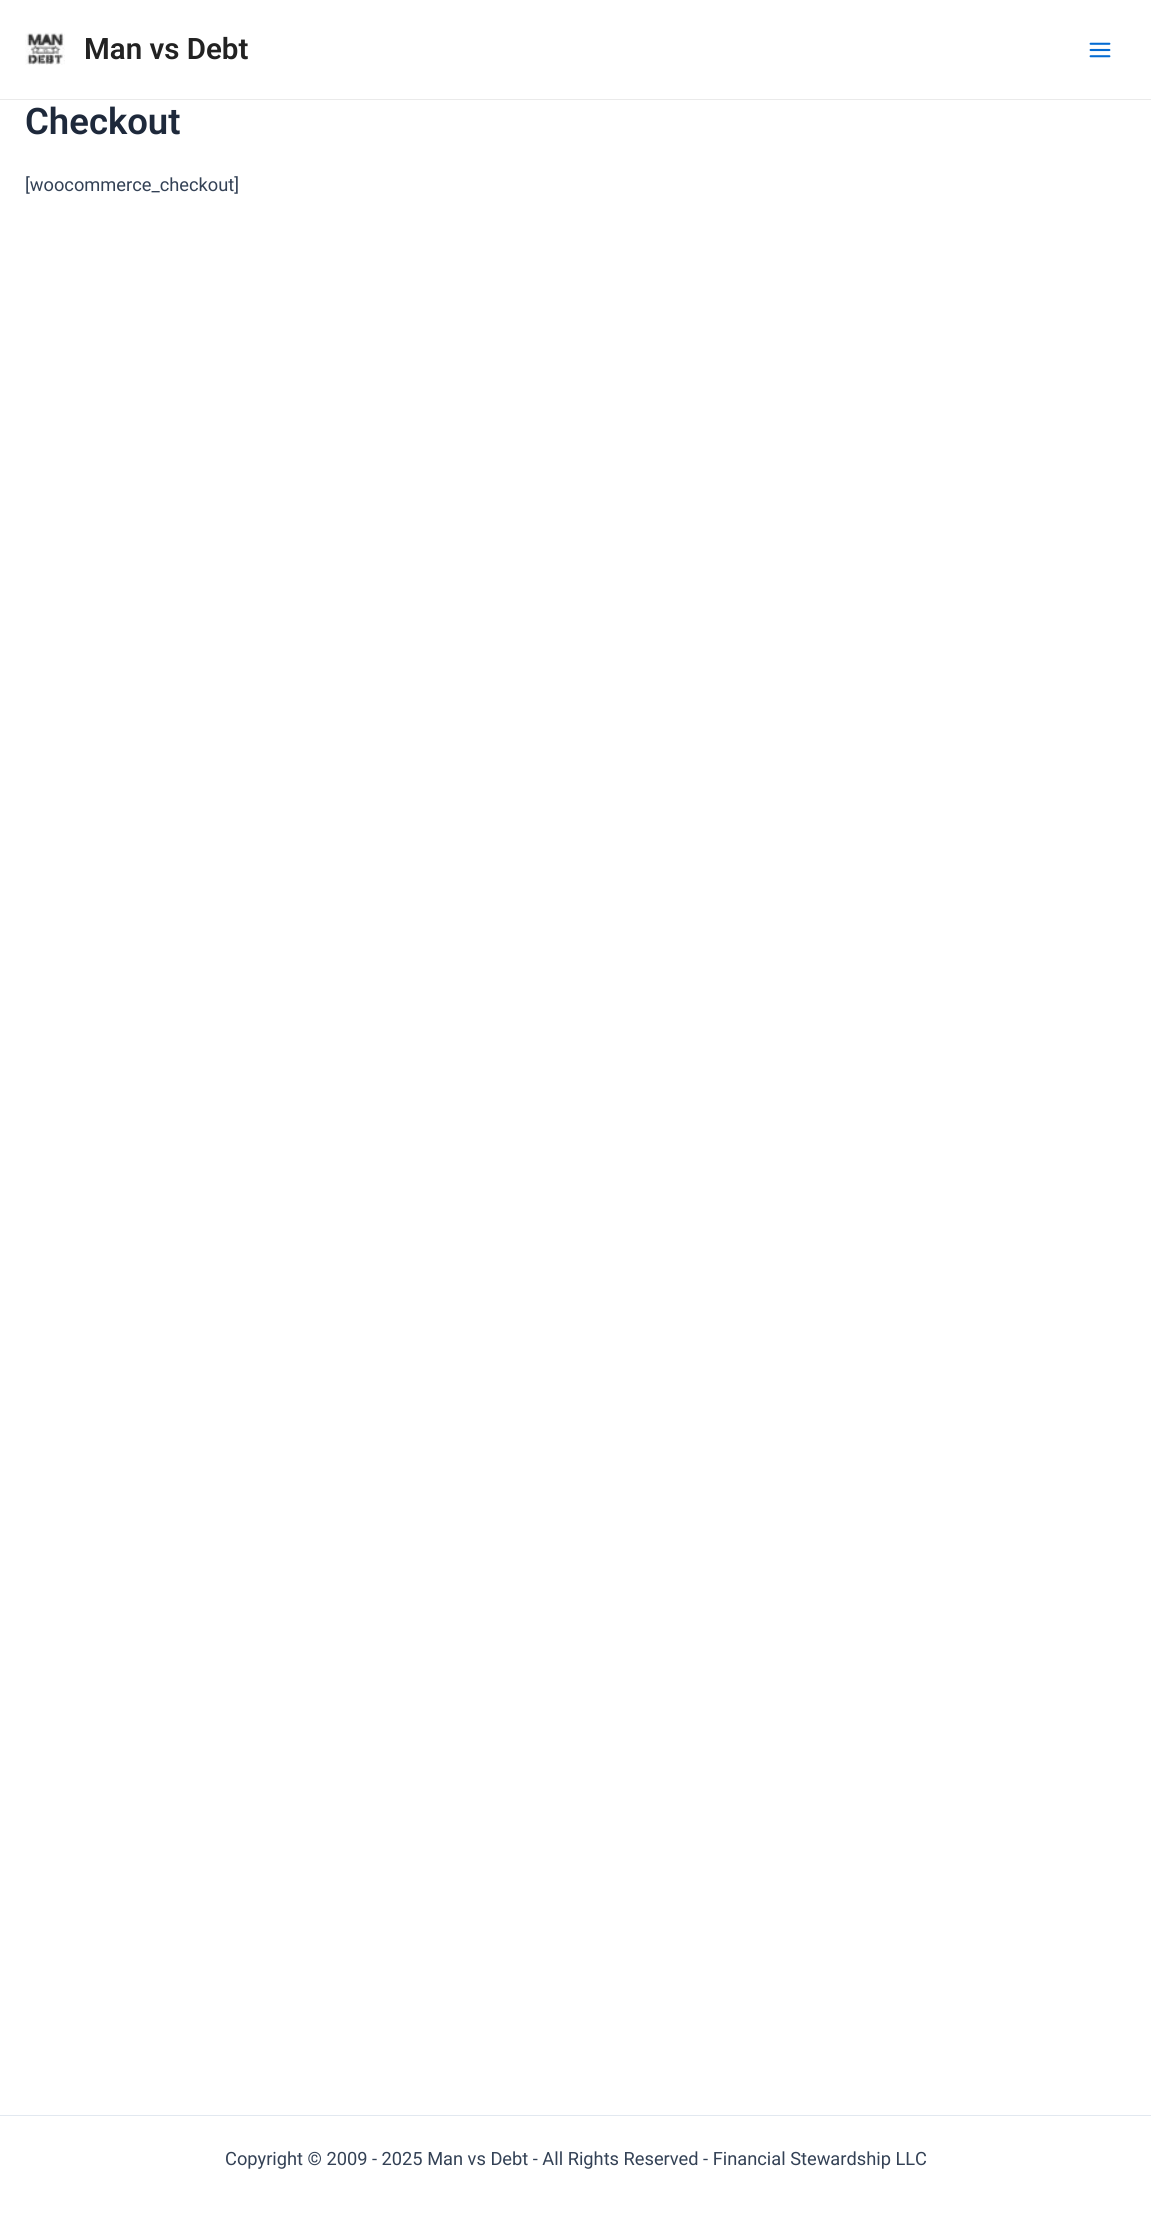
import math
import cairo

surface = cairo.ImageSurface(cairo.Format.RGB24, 1151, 2214)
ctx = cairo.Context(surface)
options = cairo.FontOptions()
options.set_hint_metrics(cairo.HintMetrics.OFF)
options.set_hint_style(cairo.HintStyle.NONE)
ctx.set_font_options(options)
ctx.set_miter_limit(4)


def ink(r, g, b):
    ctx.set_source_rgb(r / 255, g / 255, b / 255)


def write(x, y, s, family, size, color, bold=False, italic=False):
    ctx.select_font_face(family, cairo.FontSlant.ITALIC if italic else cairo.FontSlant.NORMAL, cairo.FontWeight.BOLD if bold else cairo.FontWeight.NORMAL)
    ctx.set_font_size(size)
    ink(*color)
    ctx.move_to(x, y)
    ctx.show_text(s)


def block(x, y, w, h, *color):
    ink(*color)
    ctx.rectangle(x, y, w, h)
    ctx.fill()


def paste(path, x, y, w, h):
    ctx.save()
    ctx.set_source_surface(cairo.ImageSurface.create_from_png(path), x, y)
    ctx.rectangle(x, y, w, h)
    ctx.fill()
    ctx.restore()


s1 = dict(family="Roboto SemiBold", size=29.5, color=(34, 34, 34))
s2 = dict(family="Roboto SemiBold", size=36.5, color=(30, 41, 59))
s3 = dict(family="Roboto", size=18.25, color=(51, 65, 85))

ink(255, 255, 255)
ctx.paint()
block(0, 99, 1151, 1, 234, 234, 234)
paste("pic1.png", 25, 32, 40, 33)
write(84, 59, "Man vs Debt", **s1)
paste("pic2.png", 1089, 42, 22, 16)
write(25, 134, "Checkout", **s2)
write(25, 191, "[woocommerce_checkout]", **s3)
block(0, 2115, 1151, 1, 226, 232, 240)
write(225, 2165, "Copyright © 2009 - 2025 Man vs Debt - All Rights Reserved - Financial Stewardship LLC", **s3)
surface.write_to_png("screenshot.png")
